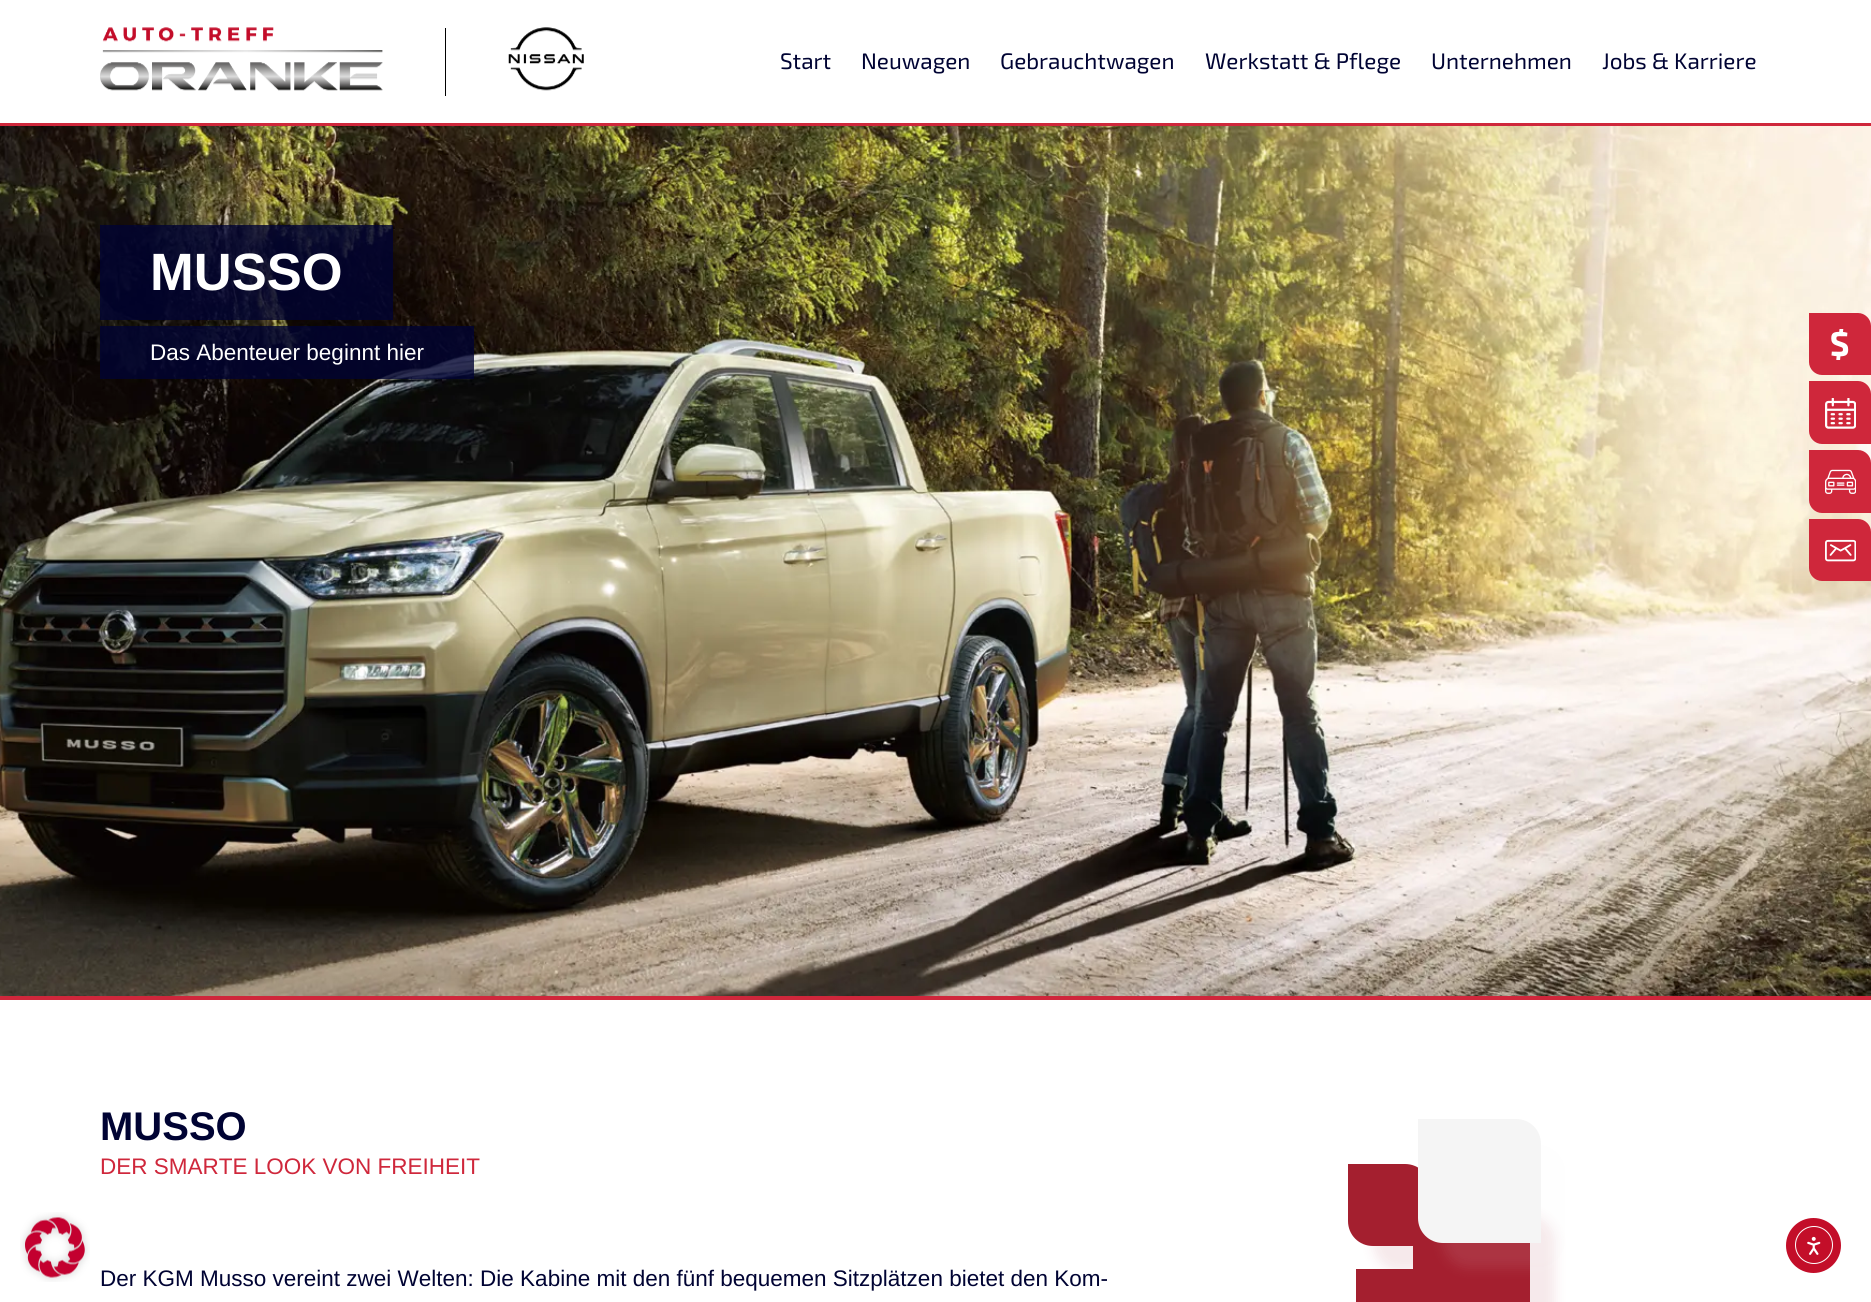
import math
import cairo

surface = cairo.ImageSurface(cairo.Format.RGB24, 1871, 1302)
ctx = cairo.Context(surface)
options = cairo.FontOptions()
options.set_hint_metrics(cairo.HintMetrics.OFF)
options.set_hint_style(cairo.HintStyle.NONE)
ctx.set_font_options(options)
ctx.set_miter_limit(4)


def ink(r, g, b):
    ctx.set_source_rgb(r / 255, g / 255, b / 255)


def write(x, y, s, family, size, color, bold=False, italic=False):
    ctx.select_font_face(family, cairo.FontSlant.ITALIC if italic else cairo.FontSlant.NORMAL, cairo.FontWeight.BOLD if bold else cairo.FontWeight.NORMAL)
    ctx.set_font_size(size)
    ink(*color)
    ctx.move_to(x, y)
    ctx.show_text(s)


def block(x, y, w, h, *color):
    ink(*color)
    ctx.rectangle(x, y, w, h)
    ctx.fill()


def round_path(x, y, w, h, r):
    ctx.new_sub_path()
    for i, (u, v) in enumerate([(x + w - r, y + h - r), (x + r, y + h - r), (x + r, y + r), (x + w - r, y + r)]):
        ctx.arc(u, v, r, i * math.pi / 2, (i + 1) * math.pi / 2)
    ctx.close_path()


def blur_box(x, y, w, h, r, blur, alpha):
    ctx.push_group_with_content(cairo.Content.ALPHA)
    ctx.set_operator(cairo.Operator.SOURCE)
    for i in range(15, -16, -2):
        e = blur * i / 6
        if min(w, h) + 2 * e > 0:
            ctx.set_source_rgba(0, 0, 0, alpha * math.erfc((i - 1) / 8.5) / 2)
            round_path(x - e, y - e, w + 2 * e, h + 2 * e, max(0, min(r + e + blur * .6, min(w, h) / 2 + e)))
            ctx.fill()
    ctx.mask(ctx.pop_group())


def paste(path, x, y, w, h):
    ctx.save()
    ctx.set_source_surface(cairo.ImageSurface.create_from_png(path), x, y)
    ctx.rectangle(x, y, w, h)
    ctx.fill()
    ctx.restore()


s1 = dict(family="Exo 2", size=22.5, color=(0, 3, 51))
s2 = dict(family="Liberation Sans", size=52.5, color=(255, 255, 255), bold=True)
s3 = dict(family="Liberation Sans", size=22.5, color=(255, 255, 255))
s4 = dict(family="Liberation Sans", size=40, color=(0, 3, 51), bold=True)
s5 = dict(family="Liberation Sans", size=22.5, color=(207, 39, 59))
s6 = dict(family="Liberation Sans", size=22.5, color=(0, 3, 51))

ink(255, 255, 255)
ctx.paint()
block(0, 123, 1871, 3, 207, 39, 59)
paste("pic1.png", 100, 27, 283, 64)
block(445, 28, 1, 68, 0, 0, 0)
paste("pic2.png", 508, 27, 76, 64)
write(780, 69, "Start", **s1)
write(861, 69, "Neuwagen", **s1)
write(1000, 69, "Gebrauchtwagen", **s1)
write(1205, 69, "Werkstatt & Pflege", **s1)
write(1431, 69, "Unternehmen", **s1)
write(1602, 69, "Jobs & Karriere", **s1)
paste("pic3.png", 20, 1212, 70, 70)
paste("pic4.png", 0, 126, 1871, 870)
block(0, 996, 1871, 4, 207, 39, 59)
ctx.set_source_rgba(0, 0.012, 0.2, 0.8)
ctx.rectangle(100, 225, 293, 95)
ctx.fill()
write(150, 290, "MUSSO", **s2)
ctx.set_source_rgba(0, 0.012, 0.2, 0.8)
ctx.rectangle(100, 326, 374, 53)
ctx.fill()
write(150, 360, "Das Abenteuer beginnt hier", **s3)
ink(207, 39, 59)
ctx.new_path()
ctx.move_to(1809, 313)
ctx.line_to(1858, 313)
ctx.curve_to(1865, 313, 1871, 319, 1871, 326)
ctx.line_to(1871, 375)
ctx.line_to(1822, 375)
ctx.curve_to(1815, 375, 1809, 369, 1809, 362)
ctx.close_path()
ctx.fill()
paste("pic5.png", 1831, 329, 18, 31)
ctx.new_path()
ctx.move_to(1809, 381)
ctx.line_to(1858, 381)
ctx.curve_to(1865, 381, 1871, 387, 1871, 394)
ctx.line_to(1871, 444)
ctx.line_to(1822, 444)
ctx.curve_to(1815, 444, 1809, 438, 1809, 431)
ctx.close_path()
ctx.fill()
paste("pic6.png", 1825, 398, 31, 31)
ctx.new_path()
ctx.move_to(1809, 450)
ctx.line_to(1858, 450)
ctx.curve_to(1865, 450, 1871, 456, 1871, 463)
ctx.line_to(1871, 513)
ctx.line_to(1822, 513)
ctx.curve_to(1815, 513, 1809, 507, 1809, 500)
ctx.close_path()
ctx.fill()
paste("pic7.png", 1825, 469, 31, 25)
ctx.new_path()
ctx.move_to(1809, 519)
ctx.line_to(1858, 519)
ctx.curve_to(1865, 519, 1871, 525, 1871, 532)
ctx.line_to(1871, 581)
ctx.line_to(1822, 581)
ctx.curve_to(1815, 581, 1809, 575, 1809, 568)
ctx.close_path()
ctx.fill()
paste("pic8.png", 1825, 539, 31, 23)
write(100, 1140, "MUSSO", **s4)
write(100, 1174, "DER SMARTE LOOK VON FREIHEIT", **s5)
write(100, 1286, "Der KGM Musso vereint zwei Welten: Die Kabine mit den fünf bequemen Sitzplätzen bietet den Kom-", **s6)
ink(164, 31, 47)
blur_box(1373, 1189, 82, 82, 25, 6, 0.1)
ink(164, 31, 47)
ctx.new_path()
ctx.move_to(1348, 1164)
ctx.line_to(1405, 1164)
ctx.curve_to(1419, 1164, 1430, 1175, 1430, 1189)
ctx.line_to(1430, 1246)
ctx.line_to(1373, 1246)
ctx.curve_to(1359, 1246, 1348, 1235, 1348, 1221)
ctx.close_path()
ctx.fill()
block(1356, 1269, 66, 33, 164, 31, 47)
ink(164, 31, 47)
blur_box(1438, 1215, 117, 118, 25, 6, 0.1)
ink(164, 31, 47)
ctx.new_path()
ctx.move_to(1413, 1190)
ctx.line_to(1505, 1190)
ctx.curve_to(1519, 1190, 1530, 1201, 1530, 1215)
ctx.line_to(1530, 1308)
ctx.line_to(1438, 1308)
ctx.curve_to(1424, 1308, 1413, 1297, 1413, 1283)
ctx.close_path()
ctx.fill()
ink(245, 245, 245)
blur_box(1443, 1144, 123, 124, 25, 6, 0.1)
ink(245, 245, 245)
ctx.new_path()
ctx.move_to(1418, 1119)
ctx.line_to(1516, 1119)
ctx.curve_to(1530, 1119, 1541, 1130, 1541, 1144)
ctx.line_to(1541, 1243)
ctx.line_to(1443, 1243)
ctx.curve_to(1429, 1243, 1418, 1232, 1418, 1218)
ctx.close_path()
ctx.fill()
ink(195, 14, 41)
ctx.arc(1813.5, 1245.5, 27.5, 0, 2 * math.pi)
ctx.fill()
ctx.arc(1814, 1245, 18.5, 0, 2 * math.pi)
ink(255, 255, 255)
ctx.set_line_width(1)
ctx.stroke()
paste("pic9.png", 1807, 1236, 14, 19)
surface.write_to_png("screenshot.png")
